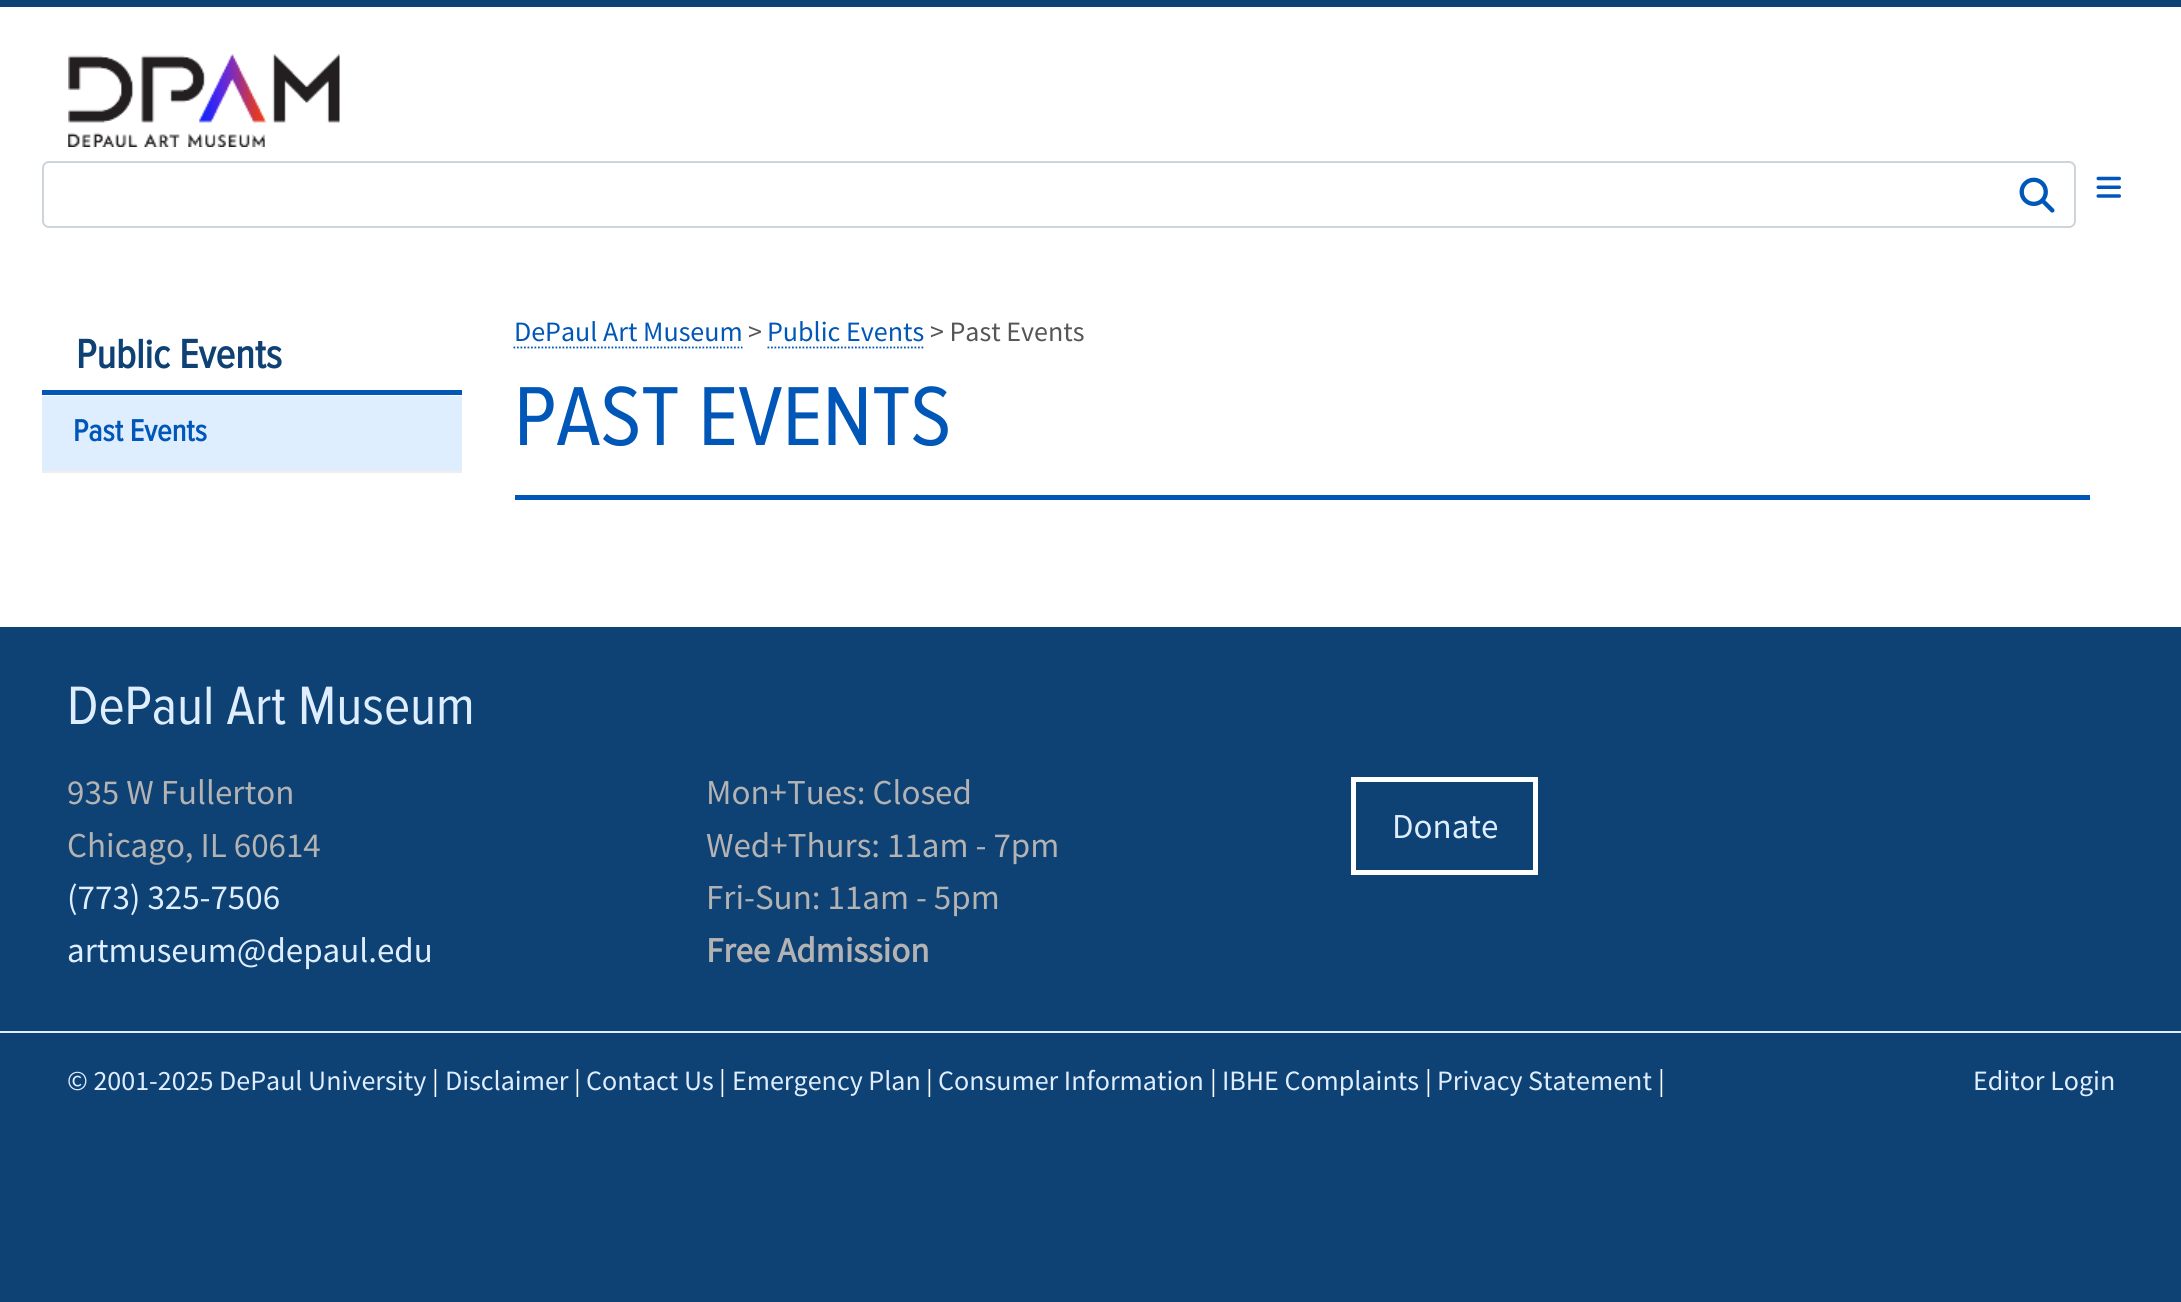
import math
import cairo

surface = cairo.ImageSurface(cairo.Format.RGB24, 2181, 1302)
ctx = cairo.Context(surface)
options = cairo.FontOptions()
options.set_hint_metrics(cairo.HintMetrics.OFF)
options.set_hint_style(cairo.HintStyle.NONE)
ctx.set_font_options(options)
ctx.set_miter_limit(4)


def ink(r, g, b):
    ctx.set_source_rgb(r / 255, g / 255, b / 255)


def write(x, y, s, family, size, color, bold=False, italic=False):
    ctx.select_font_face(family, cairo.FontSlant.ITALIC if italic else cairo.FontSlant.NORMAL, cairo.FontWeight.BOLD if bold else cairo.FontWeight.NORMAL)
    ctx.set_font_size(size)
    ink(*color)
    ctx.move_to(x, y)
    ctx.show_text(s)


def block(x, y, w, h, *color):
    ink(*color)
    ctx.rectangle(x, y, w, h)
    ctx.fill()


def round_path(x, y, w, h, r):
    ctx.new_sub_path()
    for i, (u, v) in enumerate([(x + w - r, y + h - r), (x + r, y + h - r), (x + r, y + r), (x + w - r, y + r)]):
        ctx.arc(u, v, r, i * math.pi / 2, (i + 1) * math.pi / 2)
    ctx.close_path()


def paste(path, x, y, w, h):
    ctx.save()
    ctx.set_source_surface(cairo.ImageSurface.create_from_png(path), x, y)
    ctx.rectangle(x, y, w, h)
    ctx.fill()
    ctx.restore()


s1 = dict(family="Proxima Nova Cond", size=42, color=(14, 65, 116), bold=True)
s2 = dict(family="Proxima Nova Cond", size=31.5, color=(0, 87, 183), bold=True)
s3 = dict(family="Source Sans Pro", size=28, color=(0, 87, 183))
s4 = dict(family="Source Sans Pro", size=28, color=(86, 86, 86))
s5 = dict(family="Proxima Nova Cond", size=86.75, color=(0, 87, 183))
s6 = dict(family="Proxima Nova Cond", size=56, color=(222, 238, 255))
s7 = dict(family="Source Sans Pro", size=35, color=(179, 179, 179))
s8 = dict(family="Source Sans Pro", size=35, color=(222, 238, 255))
s9 = dict(family="Source Sans Pro", size=35, color=(179, 179, 179), bold=True)
s10 = dict(family="Source Sans Pro", size=28, color=(222, 238, 255))
s11 = dict(family="Source Sans Pro", size=28, color=(255, 255, 255))

ink(14, 65, 116)
ctx.paint()
block(0, 7, 2181, 620, 255, 255, 255)
paste("pic1.png", 68, 54, 272, 93)
round_path(43, 162, 2032, 65, 6)
ink(206, 212, 218)
ctx.stroke()
paste("pic2.png", 2019, 177, 36, 36)
paste("pic3.png", 2096, 176, 25, 22)
write(76, 368, "Public Events", **s1)
block(42, 390, 420, 5, 0, 87, 183)
block(42, 396, 420, 75, 222, 238, 255)
block(42, 471, 420, 2, 238, 238, 238)
write(73, 441, "Past Events", **s2)
write(514, 341, "DePaul Art Museum", **s3)
ctx.new_path()
ctx.move_to(513.5, 347.5)
ctx.line_to(742.5, 347.5)
ctx.set_line_width(1.8)
ctx.set_dash([1.75, 1.75])
ctx.stroke()
write(748, 341, ">", **s4)
write(767, 341, "Public Events", **s3)
ctx.new_path()
ctx.move_to(767.5, 347.5)
ctx.line_to(924.5, 347.5)
ctx.stroke()
write(930, 341, "> Past Events", **s4)
block(515, 495, 1575, 5, 0, 87, 183)
write(514, 445, "PAST EVENTS", **s5)
write(67, 724, "DePaul Art Museum", **s6)
write(67, 804, "935 W Fullerton", **s7)
write(67, 857, "Chicago, IL 60614", **s7)
write(67, 909, "(773) 325-7506", **s8)
write(67, 962, "artmuseum@depaul.edu", **s8)
write(706, 804, "Mon+Tues: Closed", **s7)
write(706, 857, "Wed+Thurs: 11am - 7pm", **s7)
write(706, 909, "Fri-Sun: 11am - 5pm", **s7)
write(706, 962, "Free Admission", **s9)
ctx.rectangle(1353.5, 779.5, 182, 93)
ink(255, 255, 255)
ctx.set_line_width(5)
ctx.set_dash([])
ctx.stroke()
write(1392, 838, "Donate", **s8)
block(0, 1031, 2181, 2, 222, 238, 255)
write(67, 1090, "© 2001-2025 DePaul University", **s10)
write(432, 1090, "|", **s11)
write(445, 1090, "Disclaimer", **s10)
write(574, 1090, "|", **s11)
write(586, 1090, "Contact Us", **s10)
write(719, 1090, "|", **s11)
write(732, 1090, "Emergency Plan", **s10)
write(926, 1090, "|", **s11)
write(938, 1090, "Consumer Information", **s10)
write(1210, 1090, "|", **s11)
write(1222, 1090, "IBHE Complaints", **s10)
write(1425, 1090, "|", **s11)
write(1437, 1090, "Privacy Statement", **s10)
write(1658, 1090, "|", **s11)
write(1973, 1090, "Editor Login", **s10)
surface.write_to_png("screenshot.png")
